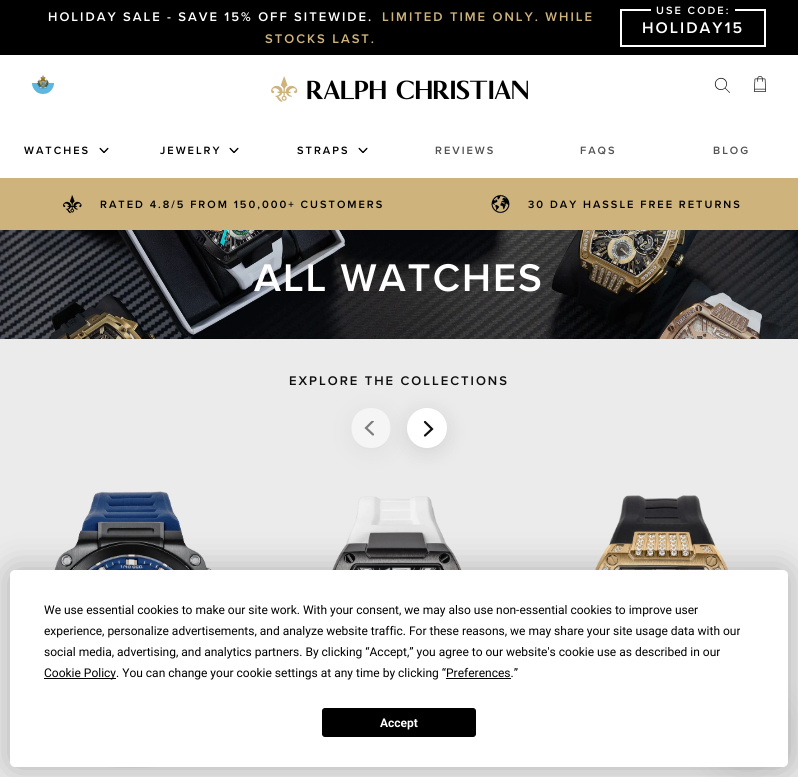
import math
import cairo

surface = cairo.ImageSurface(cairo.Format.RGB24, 798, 777)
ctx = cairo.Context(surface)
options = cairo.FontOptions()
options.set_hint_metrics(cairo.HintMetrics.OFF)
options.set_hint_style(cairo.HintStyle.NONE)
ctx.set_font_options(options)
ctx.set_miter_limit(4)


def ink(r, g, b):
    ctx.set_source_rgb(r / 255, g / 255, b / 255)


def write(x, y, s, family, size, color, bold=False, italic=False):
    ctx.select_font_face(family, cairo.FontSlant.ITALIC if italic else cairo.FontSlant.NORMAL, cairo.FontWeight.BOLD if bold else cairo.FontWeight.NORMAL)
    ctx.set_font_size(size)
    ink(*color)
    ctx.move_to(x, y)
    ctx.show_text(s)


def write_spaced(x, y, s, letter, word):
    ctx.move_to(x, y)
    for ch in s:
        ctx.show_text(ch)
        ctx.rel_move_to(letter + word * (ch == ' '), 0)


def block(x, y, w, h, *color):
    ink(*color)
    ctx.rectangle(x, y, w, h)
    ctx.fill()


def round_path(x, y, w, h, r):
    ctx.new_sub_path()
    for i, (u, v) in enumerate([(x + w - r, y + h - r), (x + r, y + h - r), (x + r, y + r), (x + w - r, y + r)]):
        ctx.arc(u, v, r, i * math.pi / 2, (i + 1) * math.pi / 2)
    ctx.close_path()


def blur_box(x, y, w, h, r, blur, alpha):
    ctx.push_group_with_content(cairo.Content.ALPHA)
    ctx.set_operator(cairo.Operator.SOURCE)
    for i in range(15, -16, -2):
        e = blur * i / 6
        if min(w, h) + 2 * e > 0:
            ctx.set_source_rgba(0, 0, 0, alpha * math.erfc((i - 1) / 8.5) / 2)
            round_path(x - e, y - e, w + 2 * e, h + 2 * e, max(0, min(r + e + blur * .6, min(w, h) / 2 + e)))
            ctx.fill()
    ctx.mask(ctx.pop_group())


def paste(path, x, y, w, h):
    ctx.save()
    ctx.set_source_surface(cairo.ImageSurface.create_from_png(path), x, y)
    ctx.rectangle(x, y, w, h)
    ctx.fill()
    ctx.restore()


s1 = dict(family="Roboto", size=12, color=(0, 0, 0))
s2 = dict(family="Roboto", size=12, color=(255, 255, 255), bold=True)

ink(255, 255, 255)
ctx.paint()
block(0, 0, 798, 55, 0, 0, 0)
ctx.select_font_face("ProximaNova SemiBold")
ctx.set_font_size(13)
ink(255, 255, 255)
write_spaced(48, 21, "HOLIDAY SALE - SAVE 15% OFF SITEWIDE.", 2, 0)
ink(206, 179, 124)
write_spaced(382, 21, "LIMITED TIME ONLY. WHILE", 2, 0)
write_spaced(265, 43, "STOCKS LAST.", 2, 0)
ctx.rectangle(621, 10, 144, 36)
ink(255, 255, 255)
ctx.stroke()
block(651, 9, 84, 2, 0, 0, 0)
ctx.set_font_size(11)
ink(255, 255, 255)
write_spaced(656, 14, "USE CODE:", 2, 0)
ctx.set_font_size(16)
write_spaced(642, 33, "HOLIDAY15", 2, 0)
paste("pic1.png", 32, 75, 22, 19)
paste("pic2.png", 271, 76, 257, 26)
paste("pic3.png", 714, 77, 16, 16)
paste("pic4.png", 754, 76, 12, 16)
ctx.set_font_size(11)
ink(0, 0, 0)
write_spaced(24, 154, "WATCHES", 2, 0)
paste("pic5.png", 99, 147, 10, 6)
write_spaced(160, 154, "JEWELRY", 2, 0)
paste("pic5.png", 229, 147, 10, 6)
write_spaced(297, 154, "STRAPS", 2, 0)
paste("pic5.png", 358, 147, 10, 6)
ink(82, 82, 82)
write_spaced(435, 154, "REVIEWS", 2, 0)
write_spaced(580, 154, "FAQS", 2, 0)
write_spaced(713, 154, "BLOG", 2, 0)
block(0, 178, 798, 52, 206, 179, 124)
paste("pic6.png", 62, 195, 20, 19)
ink(0, 0, 0)
write_spaced(100, 208, "RATED 4.8/5 FROM 150,000+ CUSTOMERS", 2, 0)
paste("pic7.png", 491, 194, 19, 20)
write_spaced(528, 208, "30 DAY HASSLE FREE RETURNS", 2, 0)
paste("pic8.png", 0, 230, 798, 109)
ctx.set_font_size(40)
ink(255, 255, 255)
write_spaced(254, 291, "ALL WATCHES", 2, 0)
block(0, 339, 798, 438, 235, 235, 235)
ctx.set_font_size(13)
ink(15, 15, 15)
write_spaced(289, 385, "EXPLORE THE COLLECTIONS", 2, 0)
ink(118, 118, 118)
blur_box(351, 412, 40, 40, 20, 10, 0.1)
ink(245, 245, 245)
ctx.new_path()
ctx.move_to(371, 448)
ctx.curve_to(345, 448, 345, 408, 371, 408)
ctx.curve_to(397, 408, 397, 448, 371, 448)
ctx.close_path()
ctx.fill()
ctx.save()
ctx.rectangle(364, 421, 10, 15)
ctx.clip()
ctx.new_path()
ctx.move_to(373, 434.5)
ctx.line_to(366, 428)
ctx.line_to(373, 421)
ink(125, 125, 125)
ctx.set_line_width(2.2)
ctx.set_line_cap(cairo.LineCap.ROUND)
ctx.stroke()
ctx.restore()
ink(0, 0, 0)
blur_box(407, 412, 40, 40, 20, 10, 0.1)
ink(255, 255, 255)
ctx.arc(427, 428, 20, 0, 2 * math.pi)
ctx.fill()
ctx.new_path()
ctx.move_to(425, 422)
ctx.line_to(432, 429)
ctx.line_to(425, 435.5)
ink(15, 15, 15)
ctx.set_line_width(2.2)
ctx.set_line_cap(cairo.LineCap.ROUND)
ctx.stroke()
paste("pic9.png", 54, 491, 158, 277)
paste("pic10.png", 332, 496, 130, 74)
paste("pic11.png", 595, 495, 134, 75)
ink(0, 0, 0)
blur_box(10, 570, 778, 197, 5, 17.5, 0.25)
blur_box(718, 702, 60, 60, 30, 20, 0.16)
ink(255, 255, 255)
round_path(10, 570, 778, 197, 5)
ctx.fill()
write(44, 614, "We use essential cookies to make our site work. With your consent, we may also use non-essential cookies to improve user", **s1)
write(44, 635, "experience, personalize advertisements, and analyze website traffic. For these reasons, we may share your site usage data with our", **s1)
write(44, 656, "social media, advertising, and analytics partners. By clicking “Accept,” you agree to our website's cookie use as described in our", **s1)
block(44, 678, 72, 1, 0, 0, 0)
write(44, 677, "Cookie Policy. You can change your cookie settings at any time by clicking “Preferences.”", **s1)
block(446, 678, 65, 1, 0, 0, 0)
round_path(322.5, 708.5, 153, 28, 2.5)
ctx.fill_preserve()
ctx.set_line_width(1)
ctx.set_line_cap(cairo.LineCap.BUTT)
ctx.stroke()
write(380, 727, "Accept", **s2)
surface.write_to_png("screenshot.png")
